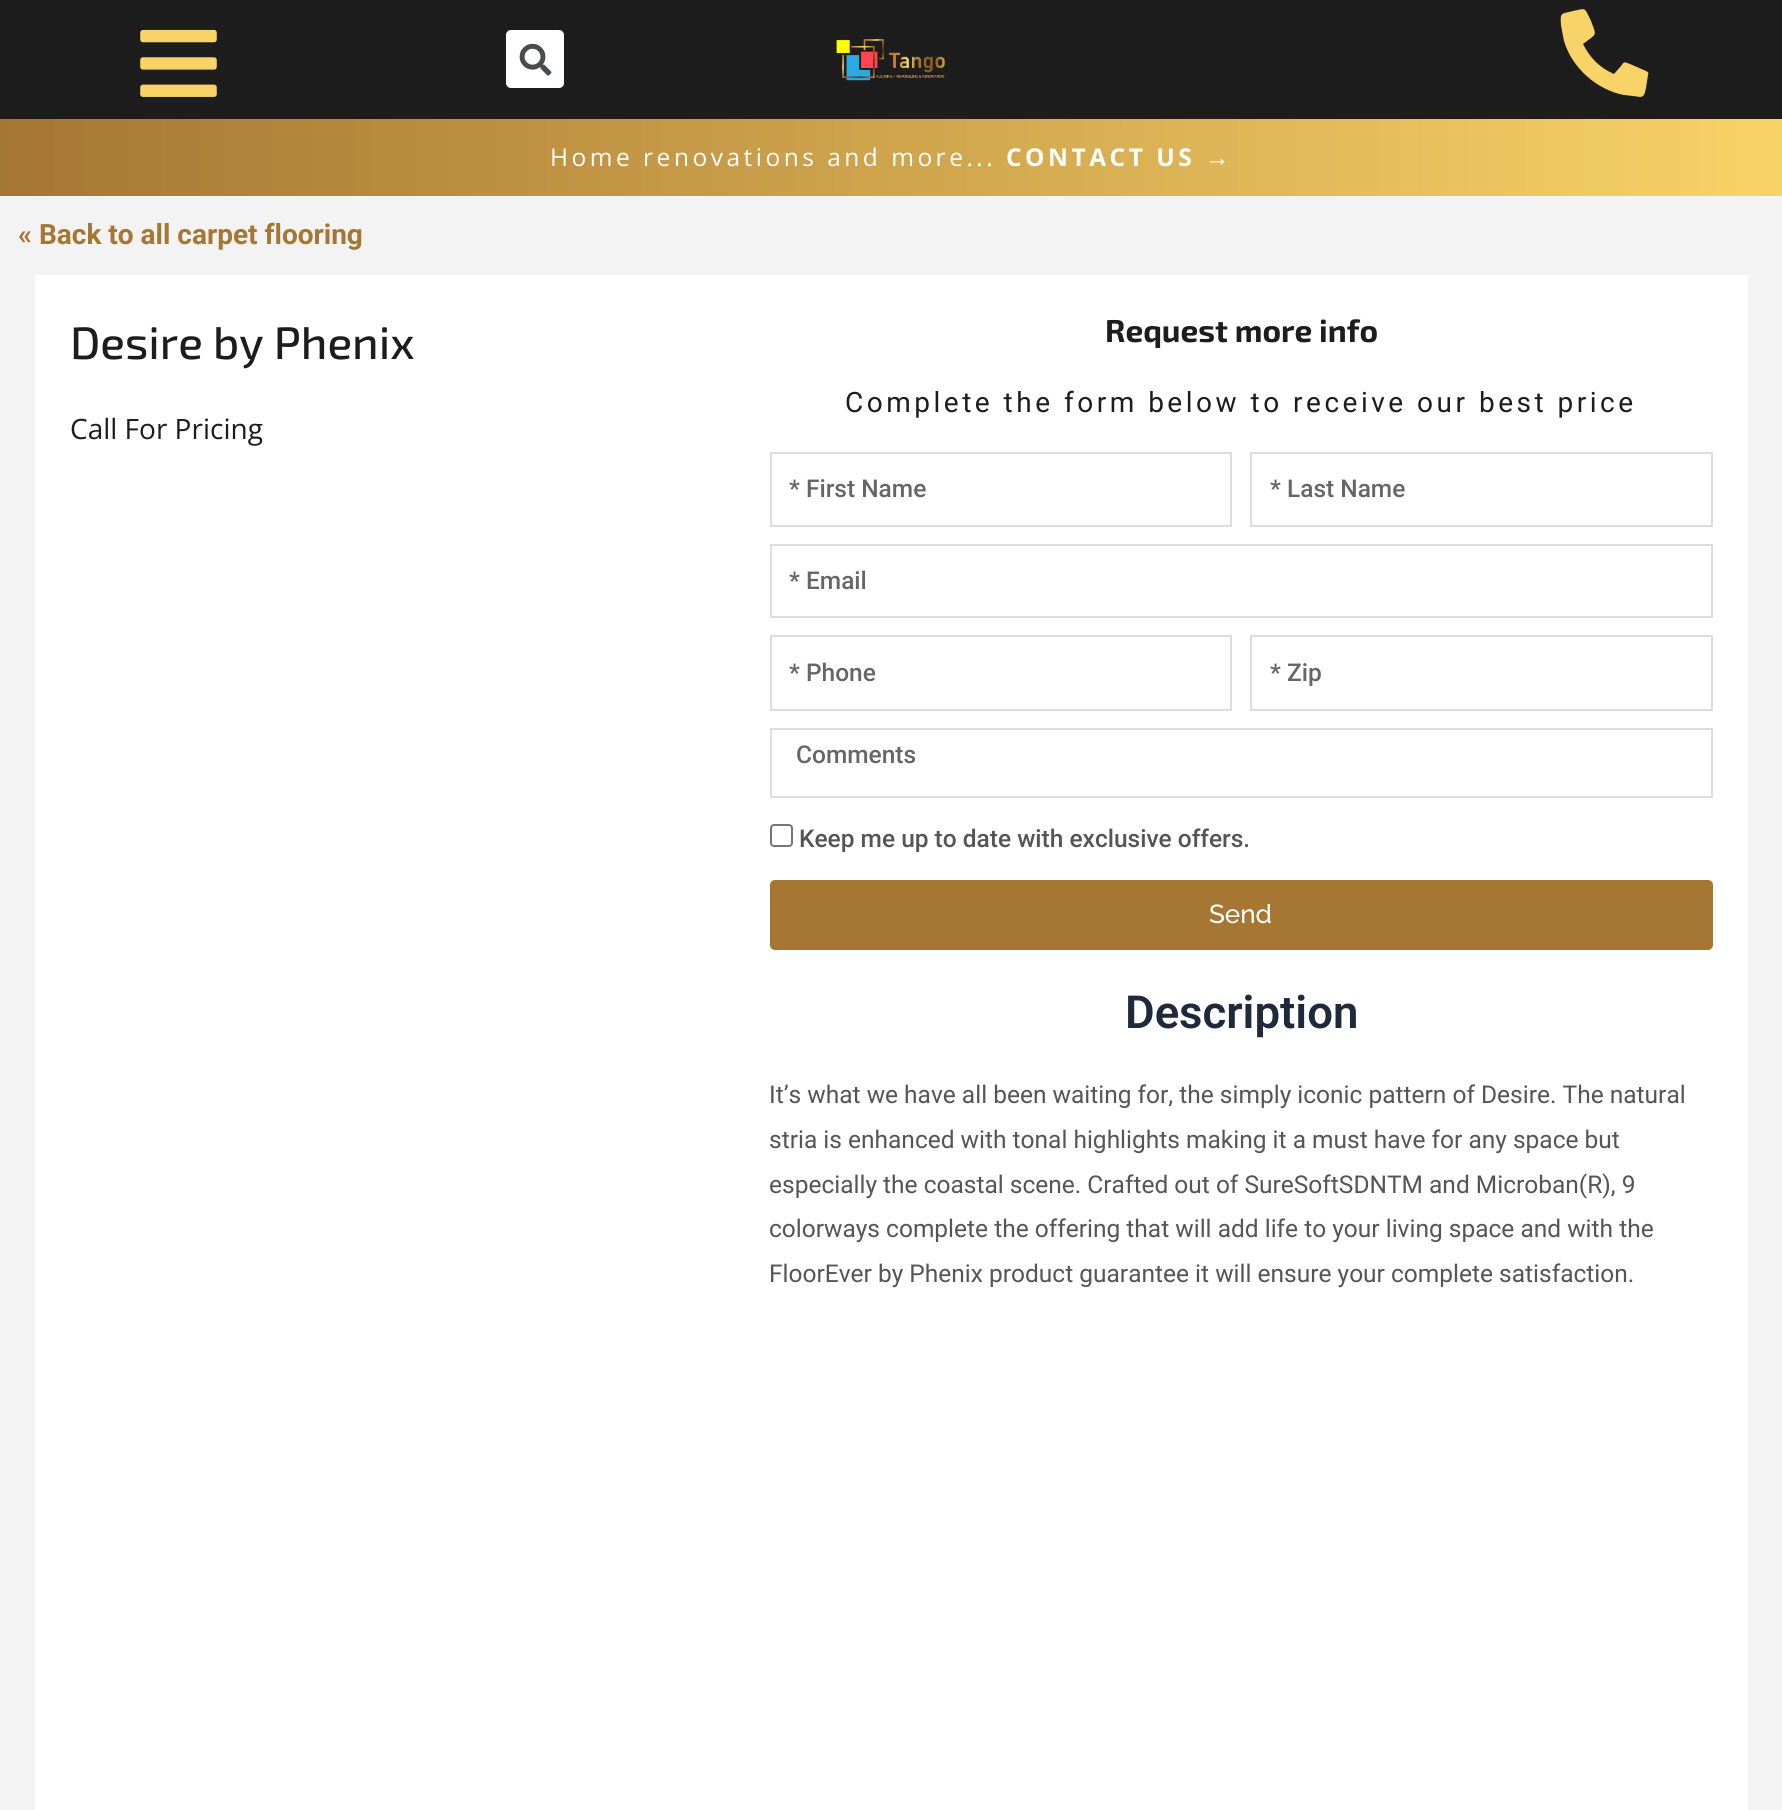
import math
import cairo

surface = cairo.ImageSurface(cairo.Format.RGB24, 1782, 1810)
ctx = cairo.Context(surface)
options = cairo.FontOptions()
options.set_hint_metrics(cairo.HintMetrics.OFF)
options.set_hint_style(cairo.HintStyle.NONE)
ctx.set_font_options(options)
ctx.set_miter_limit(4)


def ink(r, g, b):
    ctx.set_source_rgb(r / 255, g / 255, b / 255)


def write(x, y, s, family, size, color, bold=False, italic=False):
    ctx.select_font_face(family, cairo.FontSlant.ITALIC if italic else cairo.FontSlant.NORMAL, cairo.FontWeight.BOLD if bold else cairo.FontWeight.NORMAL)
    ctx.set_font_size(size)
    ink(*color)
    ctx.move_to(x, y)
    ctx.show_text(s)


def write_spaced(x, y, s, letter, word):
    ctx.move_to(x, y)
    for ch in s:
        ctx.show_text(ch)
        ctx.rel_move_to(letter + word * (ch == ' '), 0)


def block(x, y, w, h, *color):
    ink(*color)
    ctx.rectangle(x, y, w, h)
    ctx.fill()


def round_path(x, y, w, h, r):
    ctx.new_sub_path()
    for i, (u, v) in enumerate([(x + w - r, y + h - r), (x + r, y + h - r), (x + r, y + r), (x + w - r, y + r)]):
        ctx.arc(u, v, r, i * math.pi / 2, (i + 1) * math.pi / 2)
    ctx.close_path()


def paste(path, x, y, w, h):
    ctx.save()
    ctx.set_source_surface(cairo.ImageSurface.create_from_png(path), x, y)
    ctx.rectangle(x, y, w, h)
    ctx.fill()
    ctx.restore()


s1 = dict(family="Roboto", size=28, color=(166, 118, 51), bold=True)
s2 = dict(family="Exo 2 Medium", size=45.5, color=(29, 29, 29))
s3 = dict(family="Open Sans", size=28, color=(29, 29, 29))
s4 = dict(family="Exo 2", size=31.5, color=(29, 29, 29), bold=True)
s5 = dict(family="Roboto Medium", size=24.5, color=(102, 102, 102))
s6 = dict(family="Roboto Medium", size=24.5, color=(85, 85, 85))
s7 = dict(family="Raleway Medium", size=26, color=(255, 255, 255))
s8 = dict(family="Roboto SemiBold", size=45.5, color=(30, 41, 59))
s9 = dict(family="Roboto", size=24.5, color=(85, 85, 85))

ink(29, 29, 29)
ctx.paint()
paste("pic1.png", 140, 29, 77, 68)
ink(255, 255, 255)
round_path(506, 30, 58, 58, 5)
ctx.fill()
paste("pic2.png", 519, 43, 33, 33)
paste("pic3.png", 836, 39, 109, 42)
ink(248, 211, 103)
ctx.new_path()
ctx.move_to(1646, 71)
ctx.curve_to(1648, 72, 1649, 73, 1648, 75)
ctx.line_to(1646, 88)
ctx.curve_to(1645, 91, 1645, 97, 1640, 97)
ctx.curve_to(1634, 96, 1631, 96, 1624, 95)
ctx.curve_to(1597, 90, 1572, 68, 1564, 41)
ctx.curve_to(1563, 36, 1562, 31, 1561, 25)
ctx.curve_to(1560, 12, 1561, 14, 1573, 11)
ctx.curve_to(1587, 8, 1584, 7, 1591, 21)
ctx.curve_to(1597, 37, 1597, 33, 1583, 44)
ctx.curve_to(1590, 58, 1600, 68, 1614, 74)
ctx.line_to(1621, 66)
ctx.curve_to(1624, 61, 1625, 62, 1630, 64)
ctx.close_path()
ctx.fill()
gradient = cairo.LinearGradient(0, 158, 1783, 157)
gradient.add_color_stop_rgba(0, 0.651, 0.463, 0.2, 1)
gradient.add_color_stop_rgba(1, 0.973, 0.827, 0.404, 1)
ctx.set_source(gradient)
ctx.rectangle(0, 119, 1782, 77)
ctx.fill()
ctx.select_font_face("Open Sans")
ctx.set_font_size(24.5)
ink(255, 255, 255)
write_spaced(550, 166, "Home renovations and more...", 3.5, 0)
ctx.select_font_face("Open Sans", cairo.FontSlant.NORMAL, cairo.FontWeight.BOLD)
write_spaced(1006, 166, "CONTACT US", 3.5, 0)
ctx.select_font_face("Liberation Sans", cairo.FontSlant.NORMAL, cairo.FontWeight.BOLD)
write_spaced(1205, 166, "→", 3.5, 0)
block(0, 196, 1782, 1614, 243, 243, 243)
write(18, 244, "« Back to all carpet flooring", **s1)
block(35, 275, 1713, 1535, 255, 255, 255)
write(70, 359, "Desire by Phenix", **s2)
write(70, 439, "Call For Pricing", **s3)
write(1105, 342, "Request more info", **s4)
ctx.select_font_face("Roboto")
ctx.set_font_size(28)
write_spaced(845, 412, "Complete the form below to receive our best price", 3.5, 0)
ctx.rectangle(771, 453, 460, 73)
ink(221, 221, 221)
ctx.stroke()
write(789, 497, "* First Name", **s5)
ctx.rectangle(1251, 453, 461, 73)
ink(221, 221, 221)
ctx.stroke()
write(1270, 497, "* Last Name", **s5)
ctx.rectangle(771, 545, 941, 72)
ink(221, 221, 221)
ctx.stroke()
write(789, 589, "* Email", **s5)
ctx.rectangle(771, 636, 460, 74)
ink(221, 221, 221)
ctx.stroke()
write(789, 681, "* Phone", **s5)
ctx.rectangle(1251, 636, 461, 74)
ink(221, 221, 221)
ctx.stroke()
write(1270, 681, "* Zip", **s5)
ctx.rectangle(771, 729, 941, 68)
ink(221, 221, 221)
ctx.stroke()
write(796, 763, "Comments", **s5)
round_path(771, 825, 21, 21, 3)
ink(118, 118, 118)
ctx.stroke()
write(799, 847, "Keep me up to date with exclusive offers.", **s6)
ink(166, 118, 51)
round_path(770, 880, 943, 70, 5)
ctx.fill()
write(1209, 923, "Send", **s7)
write(1125, 1028, "Description", **s8)
write(769, 1103, "It’s what we have all been waiting for, the simply iconic pattern of Desire. The natural", **s9)
write(769, 1148, "stria is enhanced with tonal highlights making it a must have for any space but", **s9)
write(769, 1193, "especially the coastal scene. Crafted out of SureSoftSDNTM and Microban(R), 9", **s9)
write(769, 1237, "colorways complete the offering that will add life to your living space and with the", **s9)
write(769, 1282, "FloorEver by Phenix product guarantee it will ensure your complete satisfaction.", **s9)
surface.write_to_png("screenshot.png")
